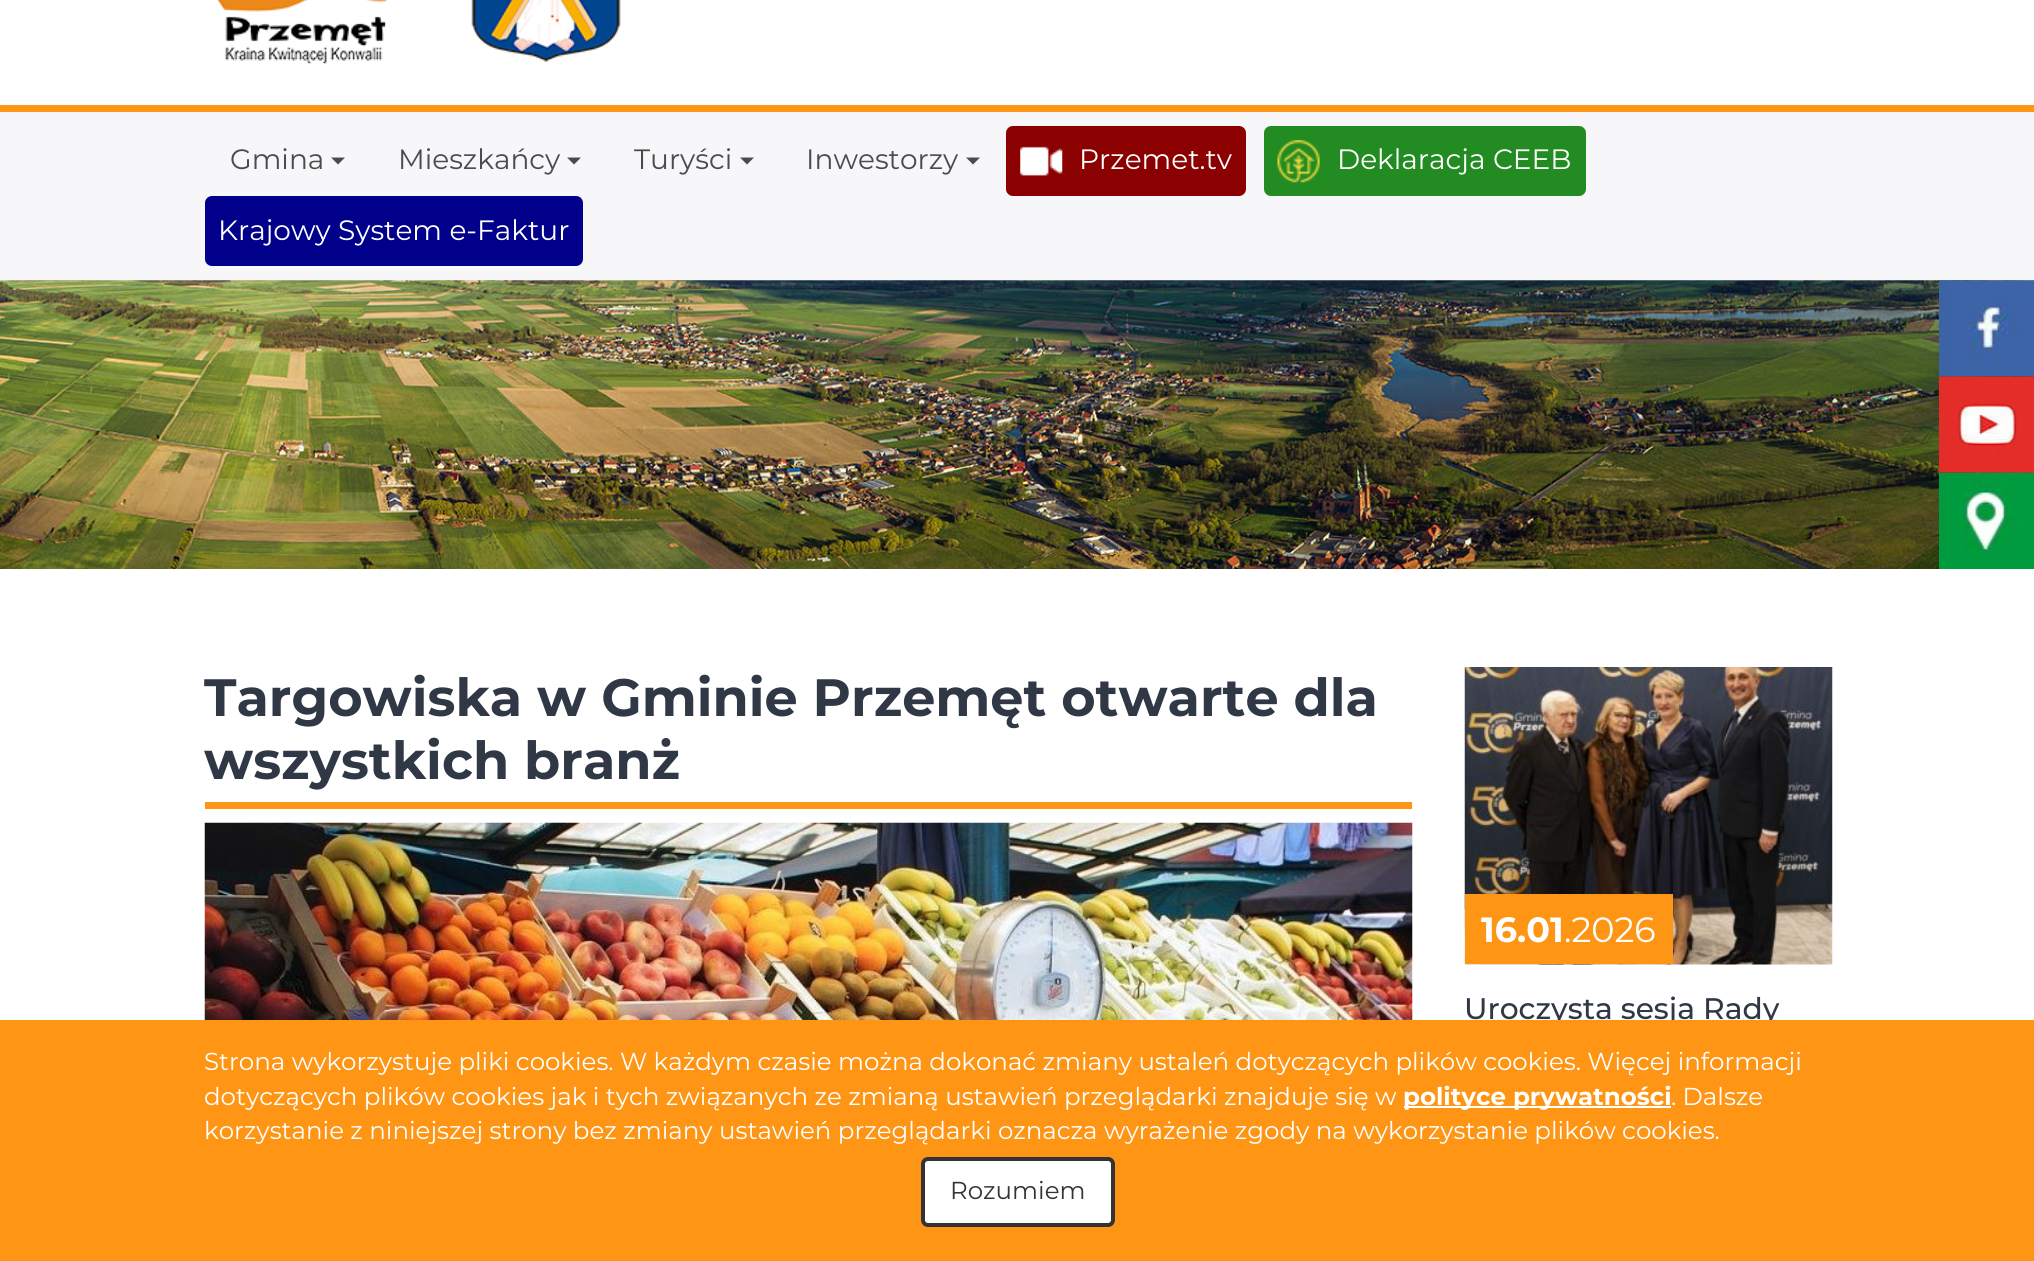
import math
import cairo

surface = cairo.ImageSurface(cairo.Format.RGB24, 2034, 1261)
ctx = cairo.Context(surface)
options = cairo.FontOptions()
options.set_hint_metrics(cairo.HintMetrics.OFF)
options.set_hint_style(cairo.HintStyle.NONE)
ctx.set_font_options(options)
ctx.set_miter_limit(4)


def ink(r, g, b):
    ctx.set_source_rgb(r / 255, g / 255, b / 255)


def write(x, y, s, family, size, color, bold=False, italic=False):
    ctx.select_font_face(family, cairo.FontSlant.ITALIC if italic else cairo.FontSlant.NORMAL, cairo.FontWeight.BOLD if bold else cairo.FontWeight.NORMAL)
    ctx.set_font_size(size)
    ink(*color)
    ctx.move_to(x, y)
    ctx.show_text(s)


def block(x, y, w, h, *color):
    ink(*color)
    ctx.rectangle(x, y, w, h)
    ctx.fill()


def round_path(x, y, w, h, r):
    ctx.new_sub_path()
    for i, (u, v) in enumerate([(x + w - r, y + h - r), (x + r, y + h - r), (x + r, y + r), (x + w - r, y + r)]):
        ctx.arc(u, v, r, i * math.pi / 2, (i + 1) * math.pi / 2)
    ctx.close_path()


def paste(path, x, y, w, h):
    ctx.save()
    ctx.set_source_surface(cairo.ImageSurface.create_from_png(path), x, y)
    ctx.rectangle(x, y, w, h)
    ctx.fill()
    ctx.restore()


s1 = dict(family="Montserrat", size=28, color=(75, 75, 76))
s2 = dict(family="Montserrat", size=28, color=(255, 255, 255))
s3 = dict(family="Montserrat", size=52.5, color=(48, 56, 69), bold=True)
s4 = dict(family="Montserrat", size=35, color=(255, 255, 255), bold=True)
s5 = dict(family="Montserrat", size=35, color=(255, 255, 255))
s6 = dict(family="Montserrat Medium", size=29.75, color=(48, 56, 69))
s7 = dict(family="Montserrat", size=24.5, color=(255, 255, 255))
s8 = dict(family="Montserrat", size=24.5, color=(255, 255, 255), bold=True)
s9 = dict(family="Montserrat", size=24.5, color=(51, 51, 51))

ink(255, 255, 255)
ctx.paint()
block(0, 105, 2034, 7, 255, 149, 21)
paste("pic1.png", 217, 0, 170, 64)
paste("pic2.png", 471, 0, 150, 63)
block(0, 112, 2034, 168, 247, 247, 249)
write(230, 169, "Gmina", **s1)
ctx.new_path()
ctx.move_to(331, 157.5)
ctx.line_to(345, 157.5)
ctx.line_to(338, 164.5)
ctx.close_path()
ctx.fill()
write(398, 169, "Mieszkańcy", **s1)
ctx.new_path()
ctx.move_to(567, 157.5)
ctx.line_to(581, 157.5)
ctx.line_to(574, 164.5)
ctx.close_path()
ctx.fill()
write(634, 169, "Turyści", **s1)
ctx.new_path()
ctx.move_to(740, 157.5)
ctx.line_to(754, 157.5)
ctx.line_to(747, 164.5)
ctx.close_path()
ctx.fill()
write(806, 169, "Inwestorzy", **s1)
ctx.new_path()
ctx.move_to(966, 157.5)
ctx.line_to(980, 157.5)
ctx.line_to(973, 164.5)
ctx.close_path()
ctx.fill()
ink(139, 0, 0)
round_path(1006, 126, 240, 70, 7)
ctx.fill()
paste("pic3.png", 1020, 146, 43, 30)
write(1079, 169, "Przemet.tv", **s2)
ink(34, 139, 34)
round_path(1264, 126, 322, 70, 7)
ctx.fill()
paste("pic4.png", 1277, 140, 43, 43)
write(1337, 169, "Deklaracja CEEB", **s2)
ink(0, 0, 139)
round_path(205, 196, 378, 70, 7)
ctx.fill()
write(218, 240, "Krajowy System e-Faktur", **s2)
paste("pic5.png", 0, 280, 2034, 289)
paste("pic6.png", 1939, 280, 95, 97)
paste("pic7.png", 1939, 376, 95, 97)
paste("pic8.png", 1939, 472, 95, 97)
block(205, 802, 1207, 7, 255, 149, 21)
write(204, 716, "Targowiska w Gminie Przemęt otwarte dla", **s3)
write(204, 779, "wszystkich branż", **s3)
paste("pic9.png", 204, 822, 1209, 198)
paste("pic10.png", 1464, 667, 369, 298)
block(1465, 894, 208, 70, 255, 149, 21)
write(1481, 942, "16.01", **s4)
write(1564, 942, ".2026", **s5)
write(1464, 1019, "Uroczysta sesja Rady", **s6)
block(0, 1020, 2034, 241, 255, 149, 21)
write(204, 1070, "Strona wykorzystuje pliki cookies. W każdym czasie można dokonać zmiany ustaleń dotyczących plików cookies. Więcej informacji", **s7)
write(204, 1105, "dotyczących plików cookies jak i tych związanych ze zmianą ustawień przeglądarki znajduje się w", **s7)
block(1404, 1106, 267, 2, 255, 255, 255)
write(1403, 1105, "polityce prywatności", **s8)
write(1671, 1105, ". Dalsze", **s7)
write(204, 1139, "korzystanie z niniejszej strony bez zmiany ustawień przeglądarki oznacza wyrażenie zgody na wykorzystanie plików cookies.", **s7)
round_path(923, 1159, 190, 66, 5)
ctx.fill_preserve()
ink(51, 51, 51)
ctx.set_line_width(4)
ctx.stroke()
write(950, 1199, "Rozumiem", **s9)
surface.write_to_png("screenshot.png")
